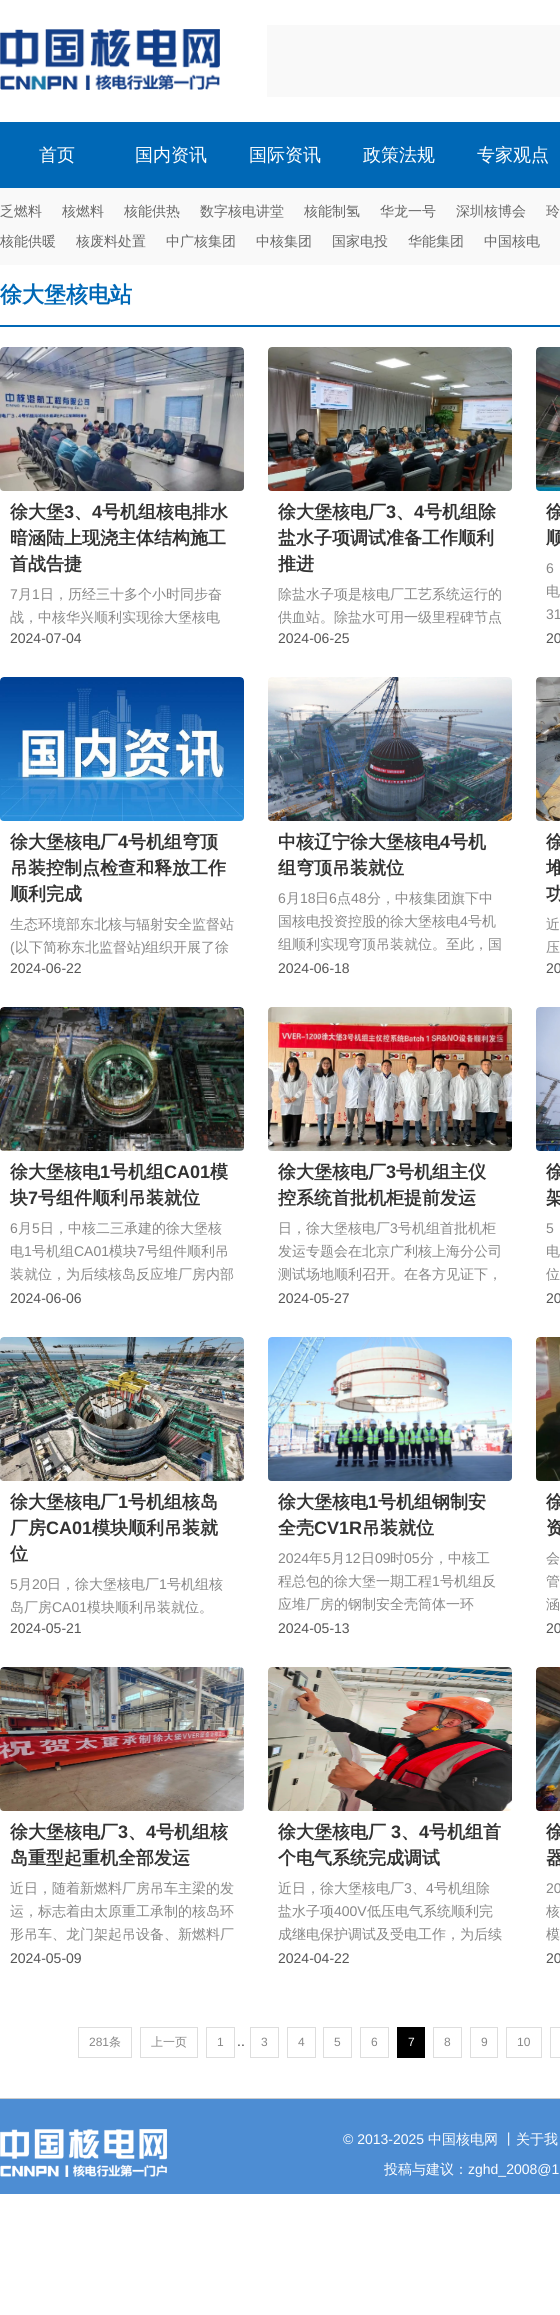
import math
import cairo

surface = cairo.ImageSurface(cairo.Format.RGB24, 560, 2315)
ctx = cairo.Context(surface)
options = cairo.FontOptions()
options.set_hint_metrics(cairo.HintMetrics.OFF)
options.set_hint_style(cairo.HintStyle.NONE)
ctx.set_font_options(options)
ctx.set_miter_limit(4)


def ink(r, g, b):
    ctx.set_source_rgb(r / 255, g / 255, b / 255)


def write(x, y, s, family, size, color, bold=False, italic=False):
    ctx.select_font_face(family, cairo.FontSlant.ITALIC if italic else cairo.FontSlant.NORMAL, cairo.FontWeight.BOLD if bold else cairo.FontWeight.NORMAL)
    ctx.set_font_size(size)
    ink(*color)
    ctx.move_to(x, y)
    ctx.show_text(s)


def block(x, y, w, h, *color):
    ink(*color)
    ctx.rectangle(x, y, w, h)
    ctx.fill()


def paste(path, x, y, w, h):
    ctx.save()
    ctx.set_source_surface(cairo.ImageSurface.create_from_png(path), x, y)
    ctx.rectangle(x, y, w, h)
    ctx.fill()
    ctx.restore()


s1 = dict(family="WenQuanYi Zen Hei Medium", size=18, color=(255, 255, 255))
s2 = dict(family="WenQuanYi Zen Hei Medium", size=14, color=(104, 104, 104))
s3 = dict(family="WenQuanYi Zen Hei", size=22, color=(0, 104, 182), bold=True)
s4 = dict(family="WenQuanYi Zen Hei", size=18, color=(51, 51, 51), bold=True)
s5 = dict(family="Liberation Sans", size=18, color=(51, 51, 51), bold=True)
s6 = dict(family="Liberation Sans", size=14, color=(135, 135, 135))
s7 = dict(family="WenQuanYi Zen Hei Medium", size=14, color=(135, 135, 135))
s8 = dict(family="Liberation Sans", size=14, color=(85, 85, 85))
s9 = dict(family="Liberation Sans", size=12, color=(135, 135, 135))
s10 = dict(family="WenQuanYi Zen Hei Medium", size=12, color=(135, 135, 135))
s11 = dict(family="Liberation Sans", size=14, color=(63, 63, 63))
s12 = dict(family="Liberation Sans", size=12, color=(255, 255, 255))
s13 = dict(family="Liberation Sans", size=14, color=(255, 255, 255))
s14 = dict(family="WenQuanYi Zen Hei Medium", size=14, color=(255, 255, 255))

ink(255, 255, 255)
ctx.paint()
paste("pic1.png", 0, 29, 220, 61)
block(267, 25, 293, 72, 249, 249, 249)
block(0, 122, 560, 66, 0, 104, 182)
write(39, 161, "首页", **s1)
write(135, 161, "国内资讯", **s1)
write(249, 161, "国际资讯", **s1)
write(363, 161, "政策法规", **s1)
write(477, 161, "专家观点", **s1)
block(0, 188, 560, 77, 249, 249, 249)
write(0, 216, "乏燃料", **s2)
write(62, 216, "核燃料", **s2)
write(124, 216, "核能供热", **s2)
write(200, 216, "数字核电讲堂", **s2)
write(304, 216, "核能制氢", **s2)
write(380, 216, "华龙一号", **s2)
write(456, 216, "深圳核博会", **s2)
write(546, 216, "玲", **s2)
write(0, 246, "核能供暖", **s2)
write(76, 246, "核废料处置", **s2)
write(166, 246, "中广核集团", **s2)
write(256, 246, "中核集团", **s2)
write(332, 246, "国家电投", **s2)
write(408, 246, "华能集团", **s2)
write(484, 246, "中国核电", **s2)
block(0, 325, 560, 2, 0, 104, 182)
write(0, 302, "徐大堡核电站", **s3)
paste("pic2.png", 0, 347, 244, 144)
write(10, 518, "徐大堡", **s4)
write(64, 518, "3", **s5)
write(92, 518, "4", **s5)
write(102, 518, "号机组核电排水", **s4)
write(74, 518, "、", **s4)
write(10, 544, "暗涵陆上现浇主体结构施工", **s4)
write(10, 570, "首战告捷", **s4)
write(10, 599, "7", **s6)
write(18, 599, "月", **s7)
write(32, 599, "1", **s6)
write(40, 599, "日，历经三十多个小时同步奋", **s7)
write(10, 622, "战，中核华兴顺利实现徐大堡核电", **s7)
write(10, 643, "2024-07-04", **s8)
paste("pic3.png", 268, 347, 244, 144)
write(278, 518, "徐大堡核电厂", **s4)
write(386, 518, "3", **s5)
write(414, 518, "4", **s5)
write(424, 518, "号机组除", **s4)
write(396, 518, "、", **s4)
write(278, 544, "盐水子项调试准备工作顺利", **s4)
write(278, 570, "推进", **s4)
write(278, 599, "除盐水子项是核电厂工艺系统运行的", **s7)
write(278, 622, "供血站。除盐水可用一级里程碑节点", **s7)
write(278, 643, "2024-06-25", **s8)
paste("pic4.png", 536, 347, 24, 144)
write(546, 518, "徐", **s4)
write(546, 544, "顺", **s4)
write(546, 573, "6", **s6)
write(546, 596, "电", **s7)
write(546, 619, "31", **s6)
write(546, 643, "20", **s8)
paste("pic5.png", 0, 677, 244, 144)
write(10, 848, "徐大堡核电厂", **s4)
write(118, 848, "4", **s5)
write(128, 848, "号机组穹顶", **s4)
write(10, 874, "吊装控制点检查和释放工作", **s4)
write(10, 900, "顺利完成", **s4)
write(10, 929, "生态环境部东北核与辐射安全监督站", **s7)
write(10, 952, "(", **s6)
write(15, 952, "以下简称东北监督站", **s7)
write(141, 952, ")", **s6)
write(145, 952, "组织开展了徐", **s7)
write(10, 973, "2024-06-22", **s8)
paste("pic6.png", 268, 677, 244, 144)
write(278, 848, "中核辽宁徐大堡核电", **s4)
write(440, 848, "4", **s5)
write(450, 848, "号机", **s4)
write(278, 874, "组穹顶吊装就位", **s4)
write(278, 903, "6", **s6)
write(286, 903, "月", **s7)
write(300, 903, "18", **s6)
write(315, 903, "日", **s7)
write(329, 903, "6", **s6)
write(337, 903, "点", **s7)
write(351, 903, "48", **s6)
write(367, 903, "分，中核集团旗下中", **s7)
write(278, 926, "国核电投资控股的徐大堡核电", **s7)
write(460, 926, "4", **s6)
write(468, 926, "号机", **s7)
write(278, 949, "组顺利实现穹顶吊装就位。至此，国", **s7)
write(278, 973, "2024-06-18", **s8)
paste("pic7.png", 536, 677, 24, 144)
write(546, 848, "徐", **s4)
write(546, 874, "堆", **s4)
write(546, 900, "功", **s4)
write(546, 929, "近", **s7)
write(546, 952, "压", **s7)
write(546, 973, "20", **s8)
paste("pic8.png", 0, 1007, 244, 144)
write(10, 1178, "徐大堡核电", **s4)
write(100, 1178, "1", **s5)
write(110, 1178, "号机组", **s4)
write(164, 1178, "CA01", **s5)
write(210, 1178, "模", **s4)
write(10, 1204, "块", **s4)
write(28, 1204, "7", **s5)
write(38, 1204, "号组件顺利吊装就位", **s4)
write(10, 1233, "6", **s6)
write(18, 1233, "月", **s7)
write(32, 1233, "5", **s6)
write(40, 1233, "日，中核二三承建的徐大堡核", **s7)
write(10, 1256, "电", **s7)
write(24, 1256, "1", **s6)
write(32, 1256, "号机组", **s7)
write(74, 1256, "CA01", **s6)
write(109, 1256, "模块", **s7)
write(137, 1256, "7", **s6)
write(145, 1256, "号组件顺利吊", **s7)
write(10, 1279, "装就位，为后续核岛反应堆厂房内部", **s7)
write(10, 1303, "2024-06-06", **s8)
paste("pic9.png", 268, 1007, 244, 144)
write(278, 1178, "徐大堡核电厂", **s4)
write(386, 1178, "3", **s5)
write(396, 1178, "号机组主仪", **s4)
write(278, 1204, "控系统首批机柜提前发运", **s4)
write(278, 1233, "日，徐大堡核电厂", **s7)
write(390, 1233, "3", **s6)
write(398, 1233, "号机组首批机柜", **s7)
write(278, 1256, "发运专题会在北京广利核上海分公司", **s7)
write(278, 1279, "测试场地顺利召开。在各方见证下，", **s7)
write(278, 1303, "2024-05-27", **s8)
paste("pic10.png", 536, 1007, 24, 144)
write(546, 1178, "徐", **s4)
write(546, 1204, "架", **s4)
write(546, 1233, "5", **s6)
write(546, 1256, "电", **s7)
write(546, 1279, "位", **s7)
write(546, 1303, "20", **s8)
paste("pic11.png", 0, 1337, 244, 144)
write(10, 1508, "徐大堡核电厂", **s4)
write(118, 1508, "1", **s5)
write(128, 1508, "号机组核岛", **s4)
write(10, 1534, "厂房", **s4)
write(46, 1534, "CA01", **s5)
write(92, 1534, "模块顺利吊装就", **s4)
write(10, 1560, "位", **s4)
write(10, 1589, "5", **s6)
write(18, 1589, "月", **s7)
write(32, 1589, "20", **s6)
write(47, 1589, "日，徐大堡核电厂", **s7)
write(159, 1589, "1", **s6)
write(167, 1589, "号机组核", **s7)
write(10, 1612, "岛厂房", **s7)
write(52, 1612, "CA01", **s6)
write(87, 1612, "模块顺利吊装就位。", **s7)
write(10, 1633, "2024-05-21", **s8)
paste("pic12.png", 268, 1337, 244, 144)
write(278, 1508, "徐大堡核电", **s4)
write(368, 1508, "1", **s5)
write(378, 1508, "号机组钢制安", **s4)
write(278, 1534, "全壳", **s4)
write(314, 1534, "CV1R", **s5)
write(362, 1534, "吊装就位", **s4)
write(278, 1563, "2024", **s6)
write(309, 1563, "年", **s7)
write(323, 1563, "5", **s6)
write(331, 1563, "月", **s7)
write(345, 1563, "12", **s6)
write(361, 1563, "日", **s7)
write(375, 1563, "09", **s6)
write(390, 1563, "时", **s7)
write(404, 1563, "05", **s6)
write(420, 1563, "分，中核工", **s7)
write(278, 1586, "程总包的徐大堡一期工程", **s7)
write(432, 1586, "1", **s6)
write(440, 1586, "号机组反", **s7)
write(278, 1609, "应堆厂房的钢制安全壳筒体一环", **s7)
write(278, 1633, "2024-05-13", **s8)
paste("pic13.png", 536, 1337, 24, 144)
write(546, 1508, "徐", **s4)
write(546, 1534, "资", **s4)
write(546, 1563, "会", **s7)
write(546, 1586, "管", **s7)
write(546, 1609, "涵", **s7)
write(546, 1633, "20", **s8)
paste("pic14.png", 0, 1667, 244, 144)
write(10, 1838, "徐大堡核电厂", **s4)
write(118, 1838, "3", **s5)
write(146, 1838, "4", **s5)
write(156, 1838, "号机组核", **s4)
write(128, 1838, "、", **s4)
write(10, 1864, "岛重型起重机全部发运", **s4)
write(10, 1893, "近日，随着新燃料厂房吊车主梁的发", **s7)
write(10, 1916, "运，标志着由太原重工承制的核岛环", **s7)
write(10, 1939, "形吊车、龙门架起吊设备、新燃料厂", **s7)
write(10, 1963, "2024-05-09", **s8)
paste("pic15.png", 268, 1667, 244, 144)
write(278, 1838, "徐大堡核电厂", **s4)
write(391, 1838, "3", **s5)
write(419, 1838, "4", **s5)
write(429, 1838, "号机组首", **s4)
write(401, 1838, "、", **s4)
write(278, 1864, "个电气系统完成调试", **s4)
write(278, 1893, "近日，徐大堡核电厂", **s7)
write(404, 1893, "3", **s6)
write(412, 1893, "、", **s7)
write(426, 1893, "4", **s6)
write(434, 1893, "号机组除", **s7)
write(278, 1916, "盐水子项", **s7)
write(334, 1916, "400V", **s6)
write(367, 1916, "低压电气系统顺利完", **s7)
write(278, 1939, "成继电保护调试及受电工作，为后续", **s7)
write(278, 1963, "2024-04-22", **s8)
paste("pic16.png", 536, 1667, 24, 144)
write(546, 1838, "徐", **s4)
write(546, 1864, "器", **s4)
write(546, 1893, "20", **s6)
write(546, 1916, "核", **s7)
write(546, 1939, "模", **s7)
write(546, 1963, "20", **s8)
ctx.rectangle(78.5, 2027.5, 53, 30)
ink(222, 222, 222)
ctx.set_line_width(1)
ctx.stroke()
write(89, 2046, "281", **s9)
write(109, 2046, "条", **s10)
ctx.rectangle(140.5, 2027.5, 57, 30)
ink(222, 222, 222)
ctx.stroke()
write(151, 2046, "上一页", **s10)
ctx.rectangle(206.5, 2027.5, 28, 30)
ink(222, 222, 222)
ctx.stroke()
write(217, 2046, "1", **s9)
write(237, 2046, "..", **s11)
ctx.rectangle(250.5, 2027.5, 28, 30)
ink(222, 222, 222)
ctx.stroke()
write(261, 2046, "3", **s9)
ctx.rectangle(287.5, 2027.5, 28, 30)
ink(222, 222, 222)
ctx.stroke()
write(298, 2046, "4", **s9)
ctx.rectangle(323.5, 2027.5, 28, 30)
ink(222, 222, 222)
ctx.stroke()
write(334, 2046, "5", **s9)
ctx.rectangle(360.5, 2027.5, 28, 30)
ink(222, 222, 222)
ctx.stroke()
write(371, 2046, "6", **s9)
block(397, 2027, 28, 31, 0, 0, 0)
write(408, 2046, "7", **s12)
ctx.rectangle(433.5, 2027.5, 28, 30)
ink(222, 222, 222)
ctx.stroke()
write(444, 2046, "8", **s9)
ctx.rectangle(470.5, 2027.5, 27, 30)
ink(222, 222, 222)
ctx.stroke()
write(481, 2046, "9", **s9)
ctx.rectangle(506.5, 2027.5, 35, 30)
ink(222, 222, 222)
ctx.stroke()
write(517, 2046, "10", **s9)
ctx.rectangle(550.5, 2027.5, 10, 30)
ink(222, 222, 222)
ctx.stroke()
block(0, 2099, 560, 95, 77, 141, 211)
block(0, 2098, 560, 1, 204, 204, 204)
paste("pic17.png", 0, 2129, 167, 48)
write(343, 2144, "© 2013-2025", **s13)
write(428, 2144, "中国核电网", **s14)
write(502, 2144, "丨关于我", **s14)
write(384, 2174, "投稿与建议：", **s14)
write(468, 2174, "zghd_2008@1", **s13)
surface.write_to_png("screenshot.png")
